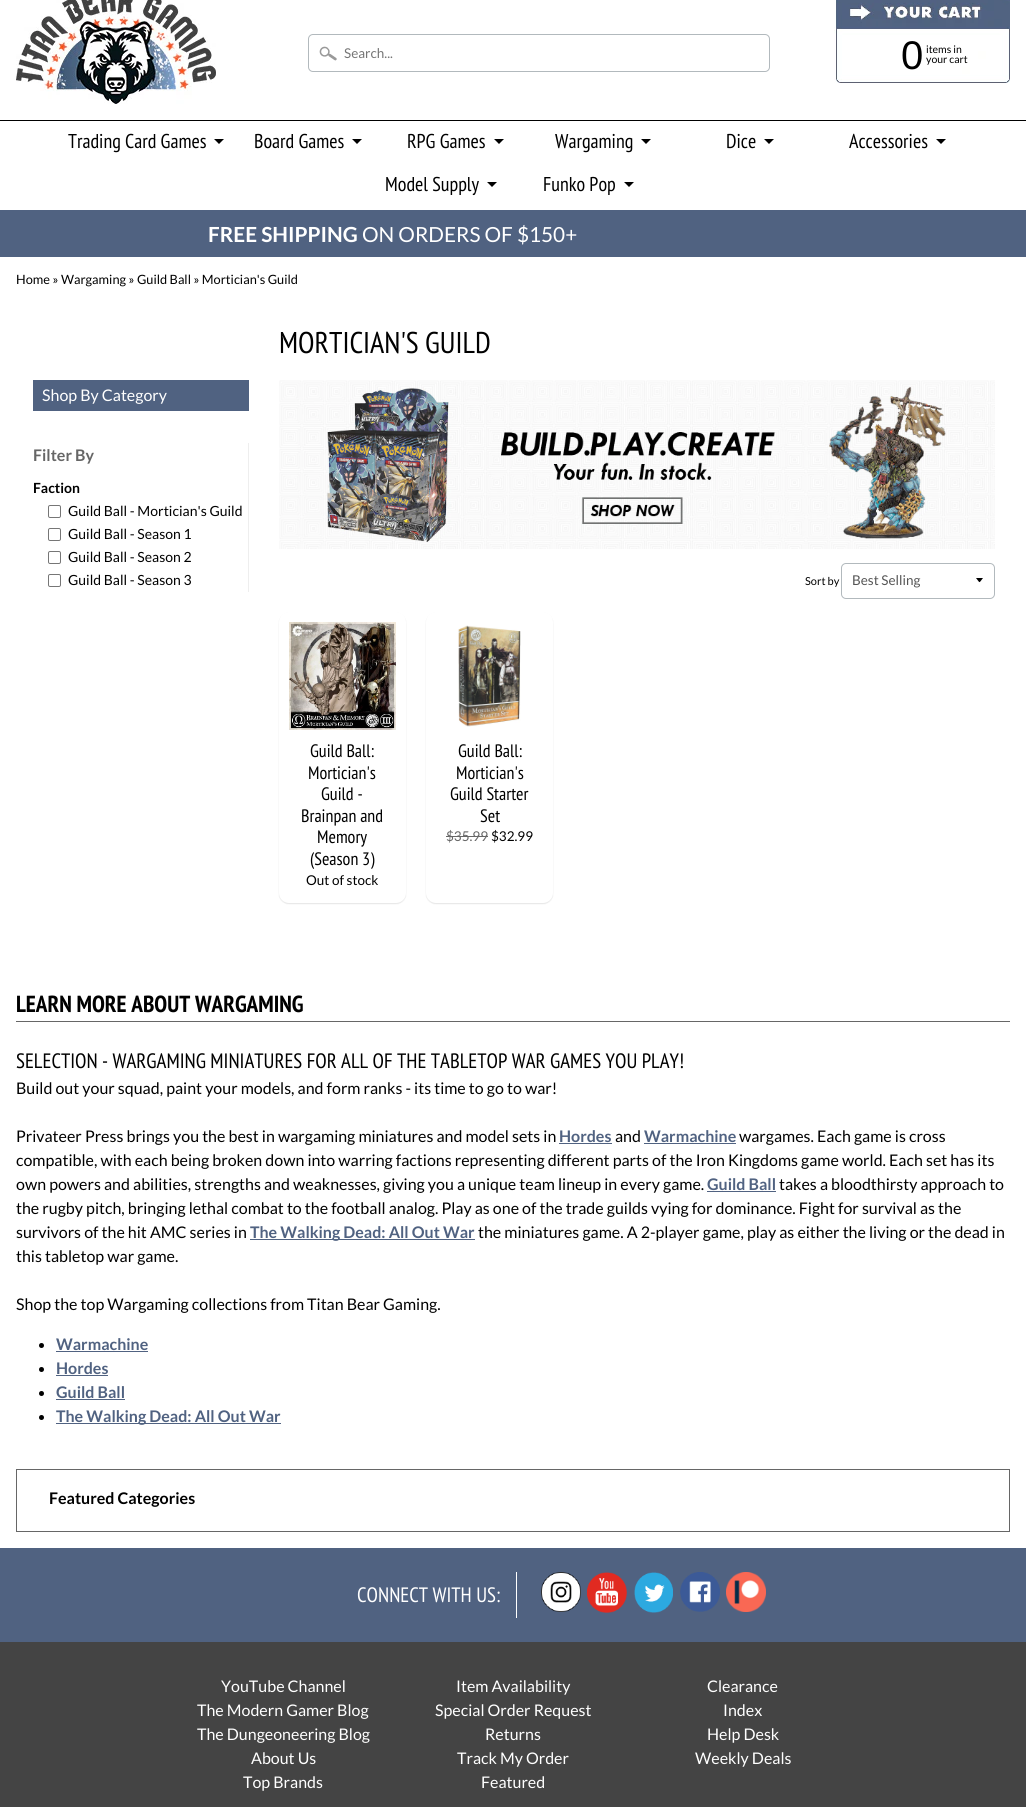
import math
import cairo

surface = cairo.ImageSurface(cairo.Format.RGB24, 1026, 1807)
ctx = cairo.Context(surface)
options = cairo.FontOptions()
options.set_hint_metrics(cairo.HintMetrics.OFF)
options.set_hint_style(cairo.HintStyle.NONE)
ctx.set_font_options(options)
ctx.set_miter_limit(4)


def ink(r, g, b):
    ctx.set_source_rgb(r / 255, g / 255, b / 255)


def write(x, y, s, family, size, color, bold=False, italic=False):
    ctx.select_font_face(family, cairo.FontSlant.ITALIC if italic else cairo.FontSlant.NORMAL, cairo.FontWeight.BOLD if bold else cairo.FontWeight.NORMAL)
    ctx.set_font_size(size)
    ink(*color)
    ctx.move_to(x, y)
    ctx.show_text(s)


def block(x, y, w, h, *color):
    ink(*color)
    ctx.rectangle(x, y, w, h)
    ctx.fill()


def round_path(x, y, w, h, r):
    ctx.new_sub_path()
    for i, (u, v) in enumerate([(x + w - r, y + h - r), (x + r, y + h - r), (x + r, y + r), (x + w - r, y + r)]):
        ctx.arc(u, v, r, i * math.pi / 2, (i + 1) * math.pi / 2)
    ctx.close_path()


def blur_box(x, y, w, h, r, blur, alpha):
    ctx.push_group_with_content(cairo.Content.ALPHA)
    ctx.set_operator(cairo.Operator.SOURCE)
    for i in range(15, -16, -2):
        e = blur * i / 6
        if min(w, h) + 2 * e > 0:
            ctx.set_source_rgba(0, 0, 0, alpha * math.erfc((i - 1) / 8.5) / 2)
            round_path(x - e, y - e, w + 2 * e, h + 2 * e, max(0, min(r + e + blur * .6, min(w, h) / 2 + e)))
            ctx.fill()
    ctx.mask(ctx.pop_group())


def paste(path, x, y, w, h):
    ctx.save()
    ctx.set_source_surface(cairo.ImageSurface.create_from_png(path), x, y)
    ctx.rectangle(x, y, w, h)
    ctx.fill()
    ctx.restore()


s1 = dict(family="Lato", size=13.5, color=(117, 117, 117))
s2 = dict(family="Liberation Sans", size=40, color=(0, 0, 0))
s3 = dict(family="Lato", size=10.5, color=(0, 0, 0))
s4 = dict(family="PT Sans Narrow", size=20, color=(0, 0, 0))
s5 = dict(family="Lato", size=20.8, color=(255, 255, 255), bold=True)
s6 = dict(family="Lato", size=20.8, color=(255, 255, 255))
s7 = dict(family="Lato", size=12.8, color=(0, 0, 0))
s8 = dict(family="Lato", size=16, color=(255, 255, 255))
s9 = dict(family="Lato", size=16, color=(102, 102, 102), bold=True)
s10 = dict(family="Lato", size=14, color=(0, 0, 0), bold=True)
s11 = dict(family="Lato", size=14, color=(0, 0, 0))
s12 = dict(family="PT Sans Narrow", size=30, color=(0, 0, 0))
s13 = dict(family="Lato", size=11, color=(0, 0, 0))
s14 = dict(family="Lato", size=13.5, color=(85, 85, 85))
s15 = dict(family="PT Sans Narrow", size=18, color=(0, 0, 0))
s16 = dict(family="Lato", size=13.5, color=(0, 0, 0))
s17 = dict(family="Lato", size=13.5, color=(102, 102, 102))
s18 = dict(family="PT Sans Narrow", size=23.25, color=(0, 0, 0), bold=True)
s19 = dict(family="PT Sans Narrow", size=20.8, color=(0, 0, 0))
s20 = dict(family="Lato", size=16, color=(0, 0, 0))
s21 = dict(family="Lato", size=16, color=(80, 98, 129), bold=True)
s22 = dict(family="Lato", size=16, color=(0, 0, 0), bold=True)
s23 = dict(family="PT Sans Narrow", size=20.8, color=(255, 255, 255))

ink(255, 255, 255)
ctx.paint()
paste("pic1.png", 16, 0, 200, 104)
paste("pic2.png", 319, 46, 18, 15)
round_path(308.5, 34.5, 461, 37, 4.5)
ink(178, 185, 189)
ctx.set_line_width(1)
ctx.stroke()
write(344, 58, "Search...", **s1)
paste("pic3.png", 834, 0, 176, 83)
write(901, 69, "0", **s2)
write(926, 53, "items in", **s3)
write(926, 63, "your cart", **s3)
block(0, 120, 1026, 1, 0, 0, 0)
write(68, 148, "Trading Card Games", **s4)
ctx.new_path()
ctx.move_to(214, 139)
ctx.line_to(224, 139)
ctx.line_to(219, 144)
ctx.close_path()
ctx.fill()
write(254, 148, "Board Games", **s4)
ctx.new_path()
ctx.move_to(352, 139)
ctx.line_to(362, 139)
ctx.line_to(357, 144)
ctx.close_path()
ctx.fill()
write(407, 148, "RPG Games", **s4)
ctx.new_path()
ctx.move_to(494, 139)
ctx.line_to(504, 139)
ctx.line_to(499, 144)
ctx.close_path()
ctx.fill()
write(555, 148, "Wargaming", **s4)
ctx.new_path()
ctx.move_to(641, 139)
ctx.line_to(651, 139)
ctx.line_to(646, 144)
ctx.close_path()
ctx.fill()
write(726, 148, "Dice", **s4)
ctx.new_path()
ctx.move_to(764, 139)
ctx.line_to(774, 139)
ctx.line_to(769, 144)
ctx.close_path()
ctx.fill()
write(849, 148, "Accessories", **s4)
ctx.new_path()
ctx.move_to(936, 139)
ctx.line_to(946, 139)
ctx.line_to(941, 144)
ctx.close_path()
ctx.fill()
write(385, 191, "Model Supply", **s4)
ctx.new_path()
ctx.move_to(487, 182)
ctx.line_to(497, 182)
ctx.line_to(492, 187)
ctx.close_path()
ctx.fill()
write(543, 191, "Funko Pop", **s4)
ctx.new_path()
ctx.move_to(624, 182)
ctx.line_to(634, 182)
ctx.line_to(629, 187)
ctx.close_path()
ctx.fill()
block(0, 210, 1026, 47, 80, 98, 129)
write(208, 242, "FREE SHIPPING", **s5)
write(362, 242, "ON ORDERS OF $150+", **s6)
write(16, 284, "Home » Wargaming » Guild Ball » Mortician's Guild", **s7)
ctx.rectangle(33.5, 380.5, 215, 30)
ink(80, 98, 129)
ctx.stroke()
block(34, 381, 214, 29, 80, 98, 129)
write(42, 401, "Shop By Category", **s8)
block(248, 443, 1, 149, 238, 238, 238)
write(33, 461, "Filter By", **s9)
write(33, 493, "Faction", **s10)
round_path(48.5, 505.5, 12, 12, 1.5)
ink(118, 118, 118)
ctx.stroke()
write(68, 516, "Guild Ball - Mortician's Guild", **s11)
round_path(48.5, 528.5, 12, 12, 1.5)
ink(118, 118, 118)
ctx.stroke()
write(68, 539, "Guild Ball - Season 1", **s11)
round_path(48.5, 551.5, 12, 12, 1.5)
ink(118, 118, 118)
ctx.stroke()
write(68, 562, "Guild Ball - Season 2", **s11)
round_path(48.5, 574.5, 12, 12, 1.5)
ink(118, 118, 118)
ctx.stroke()
write(68, 585, "Guild Ball - Season 3", **s11)
write(279, 353, "MORTICIAN'S GUILD", **s12)
paste("pic4.png", 279, 380, 716, 169)
write(805, 585, "Sort by", **s13)
ctx.new_path()
ctx.move_to(976, 578)
ctx.curve_to(980.5, 583.5, 978.5, 583.5, 983, 578)
ctx.close_path()
ctx.fill()
round_path(841.5, 563.5, 153, 35, 4.5)
ink(178, 185, 189)
ctx.stroke()
write(852, 585, "Best Selling", **s14)
ink(0, 0, 0)
blur_box(279, 613, 127, 291, 10, 0.5, 0.1)
ink(255, 255, 255)
round_path(279, 612, 127, 291, 10)
ctx.fill()
paste("pic5.png", 289, 622, 107, 108)
write(310, 757, "Guild Ball:", **s15)
write(308, 779, "Mortician's", **s15)
write(321, 800, "Guild -", **s15)
write(301, 822, "Brainpan and", **s15)
write(317, 843, "Memory", **s15)
write(310, 865, "(Season 3)", **s15)
write(306, 885, "Out of stock", **s16)
ink(0, 0, 0)
blur_box(426, 613, 127, 291, 10, 0.5, 0.1)
ink(255, 255, 255)
round_path(426, 612, 127, 291, 10)
ctx.fill()
paste("pic6.png", 458, 625, 63, 102)
write(458, 757, "Guild Ball:", **s15)
write(456, 779, "Mortician's", **s15)
write(450, 800, "Guild Starter", **s15)
write(480, 822, "Set", **s15)
write(446, 841, "$35.99", **s17)
block(446, 836, 42, 1, 102, 102, 102)
write(491, 841, "$32.99", **s16)
block(16, 1021, 994, 1, 102, 102, 102)
write(16, 1012, "LEARN MORE ABOUT WARGAMING", **s18)
write(16, 1068, "SELECTION - WARGAMING MINIATURES FOR ALL OF THE TABLETOP WAR GAMES YOU PLAY!", **s19)
write(16, 1094, "Build out your squad, paint your models, and form ranks - its time to go to war!", **s20)
write(16, 1142, "Privateer Press brings you the best in wargaming miniatures and model sets in", **s20)
write(559, 1142, "Hordes", **s21)
block(559, 1143, 53, 1, 80, 98, 129)
write(615, 1142, "and", **s20)
write(644, 1142, "Warmachine", **s21)
block(644, 1143, 92, 1, 80, 98, 129)
write(739, 1142, "wargames. Each game is cross", **s20)
write(16, 1166, "compatible, with each being broken down into warring factions representing different parts of the Iron Kingdoms game world. Each set has its", **s20)
write(16, 1190, "own powers and abilities, strengths and weaknesses, giving you a unique team lineup in every game.", **s20)
write(707, 1190, "Guild Ball", **s21)
block(707, 1191, 69, 1, 80, 98, 129)
write(779, 1190, "takes a bloodthirsty approach to", **s20)
write(16, 1214, "the rugby pitch, bringing lethal combat to the football analog. Play as one of the trade guilds vying for dominance. Fight for survival as the", **s20)
write(16, 1238, "survivors of the hit AMC series in", **s20)
block(250, 1239, 225, 1, 80, 98, 129)
write(250, 1238, "The Walking Dead: All Out War", **s21)
write(478, 1238, "the miniatures game. A 2-player game, play as either the living or the dead in", **s20)
write(16, 1262, "this tabletop war game.", **s20)
write(16, 1310, "Shop the top Wargaming collections from Titan Bear Gaming.", **s20)
ctx.new_path()
ctx.arc(41.5, 1345.5, 2.5, 0, 2 * math.pi)
ctx.fill()
write(56, 1350, "Warmachine", **s21)
block(56, 1351, 92, 1, 80, 98, 129)
ink(0, 0, 0)
ctx.new_path()
ctx.arc(41.5, 1369.5, 2.5, 0, 2 * math.pi)
ctx.fill()
write(56, 1374, "Hordes", **s21)
block(56, 1375, 52, 1, 80, 98, 129)
ink(0, 0, 0)
ctx.new_path()
ctx.arc(41.5, 1393.5, 2.5, 0, 2 * math.pi)
ctx.fill()
write(56, 1398, "Guild Ball", **s21)
block(56, 1399, 69, 1, 80, 98, 129)
ink(0, 0, 0)
ctx.new_path()
ctx.arc(41.5, 1417.5, 2.5, 0, 2 * math.pi)
ctx.fill()
block(56, 1423, 225, 1, 80, 98, 129)
write(56, 1422, "The Walking Dead: All Out War", **s21)
ctx.rectangle(16.5, 1469.5, 993, 62)
ink(102, 102, 102)
ctx.stroke()
write(49, 1504, "Featured Categories", **s22)
block(0, 1642, 1026, 165, 68, 68, 68)
block(0, 1548, 1026, 94, 80, 98, 129)
write(357, 1602, "CONNECT WITH US:", **s23)
block(516, 1572, 1, 46, 255, 255, 255)
paste("pic7.png", 541, 1572, 40, 40)
paste("pic8.png", 587, 1572, 40, 41)
paste("pic9.png", 634, 1572, 39, 41)
paste("pic10.png", 680, 1572, 40, 40)
paste("pic11.png", 726, 1572, 40, 40)
write(221, 1692, "YouTube Channel", **s8)
write(456, 1692, "Item Availability", **s8)
write(707, 1692, "Clearance", **s8)
write(197, 1716, "The Modern Gamer Blog", **s8)
write(435, 1716, "Special Order Request", **s8)
write(723, 1716, "Index", **s8)
write(197, 1740, "The Dungeoneering Blog", **s8)
write(485, 1740, "Returns", **s8)
write(707, 1740, "Help Desk", **s8)
write(251, 1764, "About Us", **s8)
write(457, 1764, "Track My Order", **s8)
write(695, 1764, "Weekly Deals", **s8)
write(243, 1788, "Top Brands", **s8)
write(481, 1788, "Featured", **s8)
surface.write_to_png("screenshot.png")
